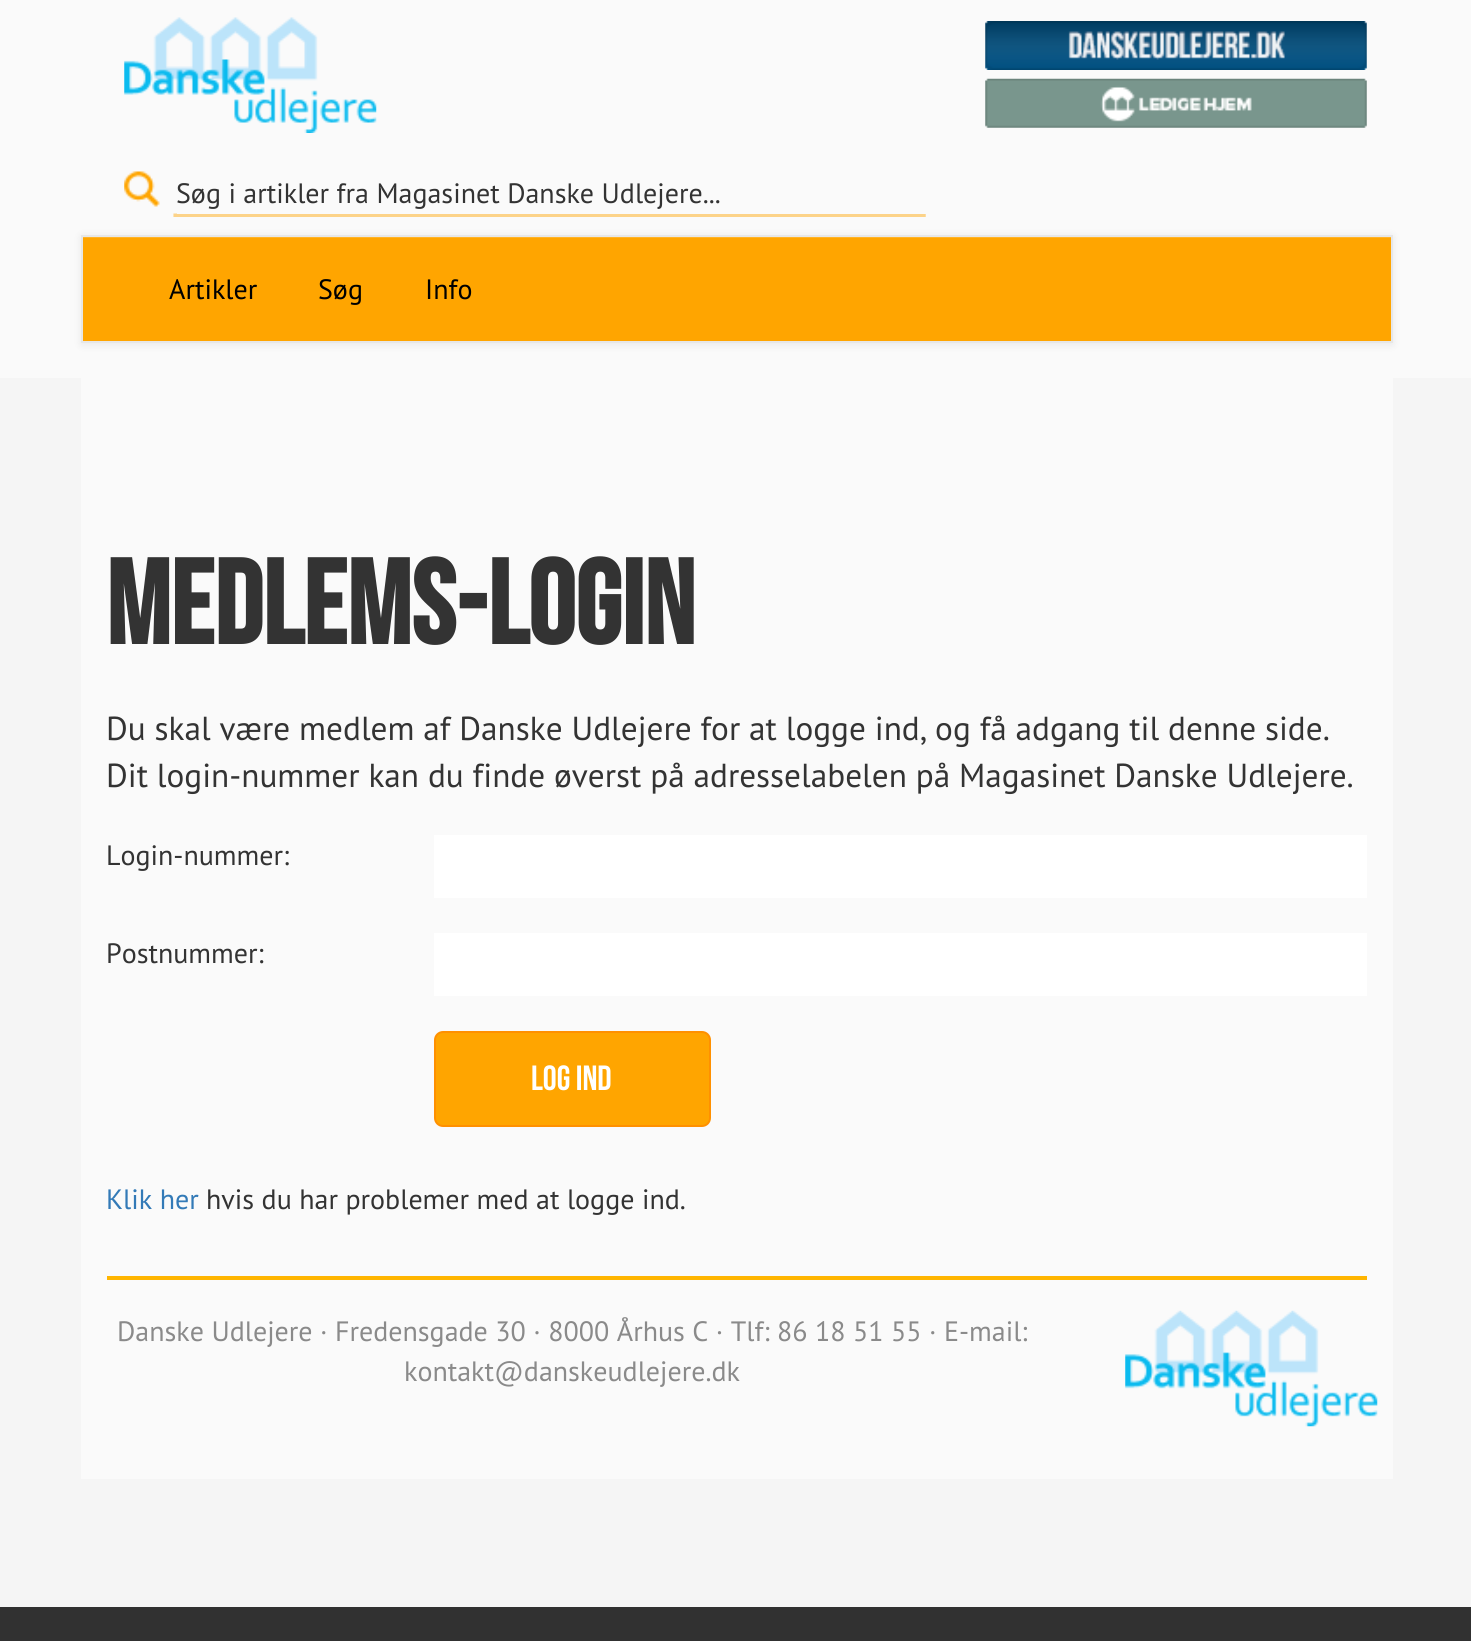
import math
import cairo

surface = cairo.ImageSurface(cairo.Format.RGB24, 1471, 1641)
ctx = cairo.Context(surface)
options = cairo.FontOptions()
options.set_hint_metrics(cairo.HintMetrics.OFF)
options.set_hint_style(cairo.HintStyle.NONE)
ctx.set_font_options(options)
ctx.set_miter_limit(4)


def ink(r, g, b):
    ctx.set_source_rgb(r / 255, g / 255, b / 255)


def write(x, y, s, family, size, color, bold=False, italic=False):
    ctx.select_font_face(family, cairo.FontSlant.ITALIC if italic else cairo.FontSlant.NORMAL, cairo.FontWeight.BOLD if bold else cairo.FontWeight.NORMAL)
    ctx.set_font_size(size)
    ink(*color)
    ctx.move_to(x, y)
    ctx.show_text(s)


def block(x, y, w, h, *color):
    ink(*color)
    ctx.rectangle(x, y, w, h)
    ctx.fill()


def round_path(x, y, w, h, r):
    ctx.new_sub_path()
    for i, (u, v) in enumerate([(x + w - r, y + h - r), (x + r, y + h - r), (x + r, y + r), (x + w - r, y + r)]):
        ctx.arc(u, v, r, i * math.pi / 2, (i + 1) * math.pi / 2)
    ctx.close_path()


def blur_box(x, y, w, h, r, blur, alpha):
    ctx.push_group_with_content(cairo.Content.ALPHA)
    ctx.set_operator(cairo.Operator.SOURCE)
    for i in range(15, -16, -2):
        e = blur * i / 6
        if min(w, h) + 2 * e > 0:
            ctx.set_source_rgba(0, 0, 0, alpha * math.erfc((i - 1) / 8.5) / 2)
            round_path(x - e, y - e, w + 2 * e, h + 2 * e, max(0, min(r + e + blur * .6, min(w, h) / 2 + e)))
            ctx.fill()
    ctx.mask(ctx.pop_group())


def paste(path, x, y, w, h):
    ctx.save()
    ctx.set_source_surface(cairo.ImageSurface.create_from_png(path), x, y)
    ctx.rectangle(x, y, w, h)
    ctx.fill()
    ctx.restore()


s1 = dict(family="PT Sans", size=28, color=(51, 51, 51))
s2 = dict(family="PT Sans", size=28, color=(0, 0, 0))
s3 = dict(family="Bebas Neue", size=119, color=(51, 51, 51), bold=True)
s4 = dict(family="PT Sans", size=33.25, color=(51, 51, 51))
s5 = dict(family="Bebas Neue", size=35, color=(255, 255, 255))
s6 = dict(family="PT Sans", size=28, color=(51, 122, 183))
s7 = dict(family="PT Sans", size=28, color=(138, 138, 138))

ink(245, 245, 245)
ctx.paint()
block(0, 0, 1471, 378, 250, 250, 250)
paste("pic1.png", 124, 17, 253, 116)
paste("pic2.png", 985, 21, 382, 49)
paste("pic3.png", 985, 78, 382, 50)
paste("pic4.png", 124, 171, 802, 46)
block(177, 213, 749, 1, 250, 250, 250)
write(176, 203, "Søg i artikler fra Magasinet Danske Udlejere...", **s1)
ink(0, 0, 0)
blur_box(81, 236, 1312, 109, 0, 4.5, 0.07)
block(83, 238, 1308, 103, 255, 165, 0)
block(82, 237, 1309, 1, 255, 179, 38)
ctx.rectangle(82, 236, 1310, 106)
ink(231, 231, 231)
ctx.stroke()
write(169, 299, "Artikler", **s2)
write(318, 299, "Søg", **s2)
write(425, 299, "Info", **s2)
block(81, 378, 1312, 1101, 250, 250, 250)
write(106, 644, "Medlems-login", **s3)
write(106, 740, "Du skal være medlem af Danske Udlejere for at logge ind, og få adgang til denne side.", **s4)
write(106, 787, "Dit login-nummer kan du finde øverst på adresselabelen på Magasinet Danske Udlejere.", **s4)
write(106, 865, "Login-nummer:", **s1)
block(434, 835, 933, 63, 255, 255, 255)
write(106, 963, "Postnummer:", **s1)
block(434, 933, 933, 63, 255, 255, 255)
ink(255, 165, 0)
round_path(435, 1032, 275, 94, 8)
ctx.fill_preserve()
ink(255, 144, 0)
ctx.stroke()
write(531, 1090, "Log ind", **s5)
write(106, 1209, "Klik her", **s6)
write(206, 1209, "hvis du har problemer med at logge ind.", **s1)
block(107, 1276, 1260, 4, 255, 181, 0)
write(117, 1341, "Danske Udlejere · Fredensgade 30 · 8000 Århus C · Tlf: 86 18 51 55 · E-mail:", **s7)
write(404, 1381, "kontakt@danskeudlejere.dk", **s7)
paste("pic5.png", 1125, 1310, 253, 117)
block(0, 1607, 1471, 34, 49, 49, 49)
surface.write_to_png("screenshot.png")
